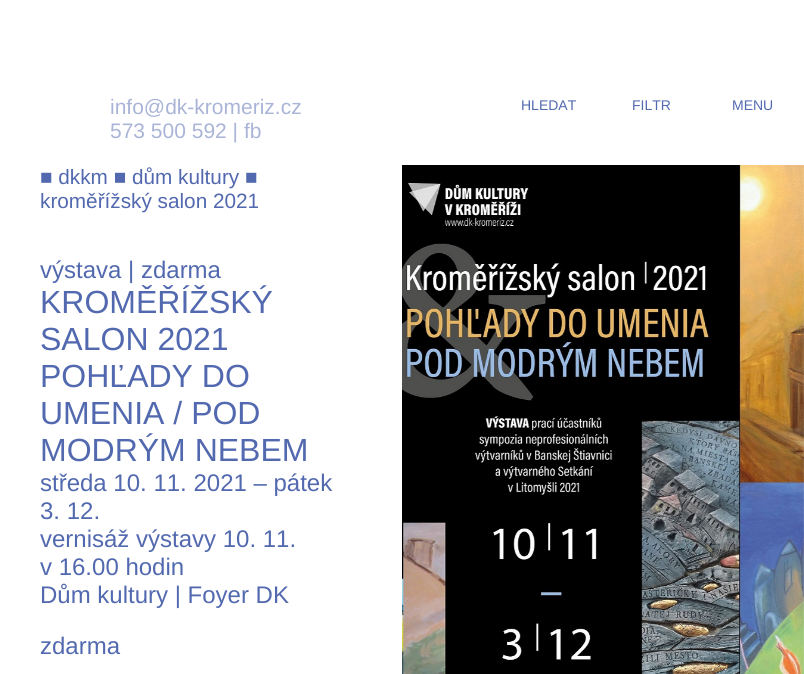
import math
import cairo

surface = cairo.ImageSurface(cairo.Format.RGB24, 804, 674)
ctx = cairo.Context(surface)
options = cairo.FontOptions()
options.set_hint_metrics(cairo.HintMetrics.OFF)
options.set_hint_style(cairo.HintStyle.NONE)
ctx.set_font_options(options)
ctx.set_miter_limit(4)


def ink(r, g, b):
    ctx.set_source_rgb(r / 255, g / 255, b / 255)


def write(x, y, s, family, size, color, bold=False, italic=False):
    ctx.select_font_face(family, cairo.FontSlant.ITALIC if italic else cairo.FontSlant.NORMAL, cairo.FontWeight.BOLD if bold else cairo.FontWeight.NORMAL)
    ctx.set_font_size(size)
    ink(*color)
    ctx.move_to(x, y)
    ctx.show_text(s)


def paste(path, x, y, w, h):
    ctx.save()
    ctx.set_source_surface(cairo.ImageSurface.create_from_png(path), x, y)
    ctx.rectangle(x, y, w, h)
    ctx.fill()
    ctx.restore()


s1 = dict(family="Liberation Sans", size=21, color=(169, 180, 215))
s2 = dict(family="Liberation Sans", size=14, color=(82, 105, 175))
s3 = dict(family="Liberation Sans", size=20.75, color=(82, 105, 175))
s4 = dict(family="Liberation Sans", size=24, color=(82, 105, 175))
s5 = dict(family="Liberation Sans", size=32, color=(82, 105, 175))

ink(255, 255, 255)
ctx.paint()
write(110, 114, "info@dk-kromeriz.cz", **s1)
write(110, 138, "573 500 592 | fb", **s1)
write(521, 110, "HLEDAT", **s2)
write(632, 110, "FILTR", **s2)
write(732, 110, "MENU", **s2)
write(40, 184, "■ dkkm ■ dům kultury ■", **s3)
write(40, 208, "kroměřížský salon 2021", **s3)
write(40, 278, "výstava | zdarma", **s4)
write(40, 313, "KROMĚŘÍŽSKÝ", **s5)
write(40, 350, "SALON 2021", **s5)
write(40, 387, "POHĽADY DO", **s5)
write(40, 424, "UMENIA / POD", **s5)
write(40, 461, "MODRÝM NEBEM", **s5)
write(40, 491, "středa 10. 11. 2021 – pátek", **s4)
write(40, 519, "3. 12.", **s4)
write(40, 547, "vernisáž výstavy 10. 11.", **s4)
write(40, 575, "v 16.00 hodin", **s4)
write(40, 603, "Dům kultury | Foyer DK", **s4)
write(40, 654, "zdarma", **s4)
paste("pic1.png", 402, 165, 402, 509)
surface.write_to_png("screenshot.png")
